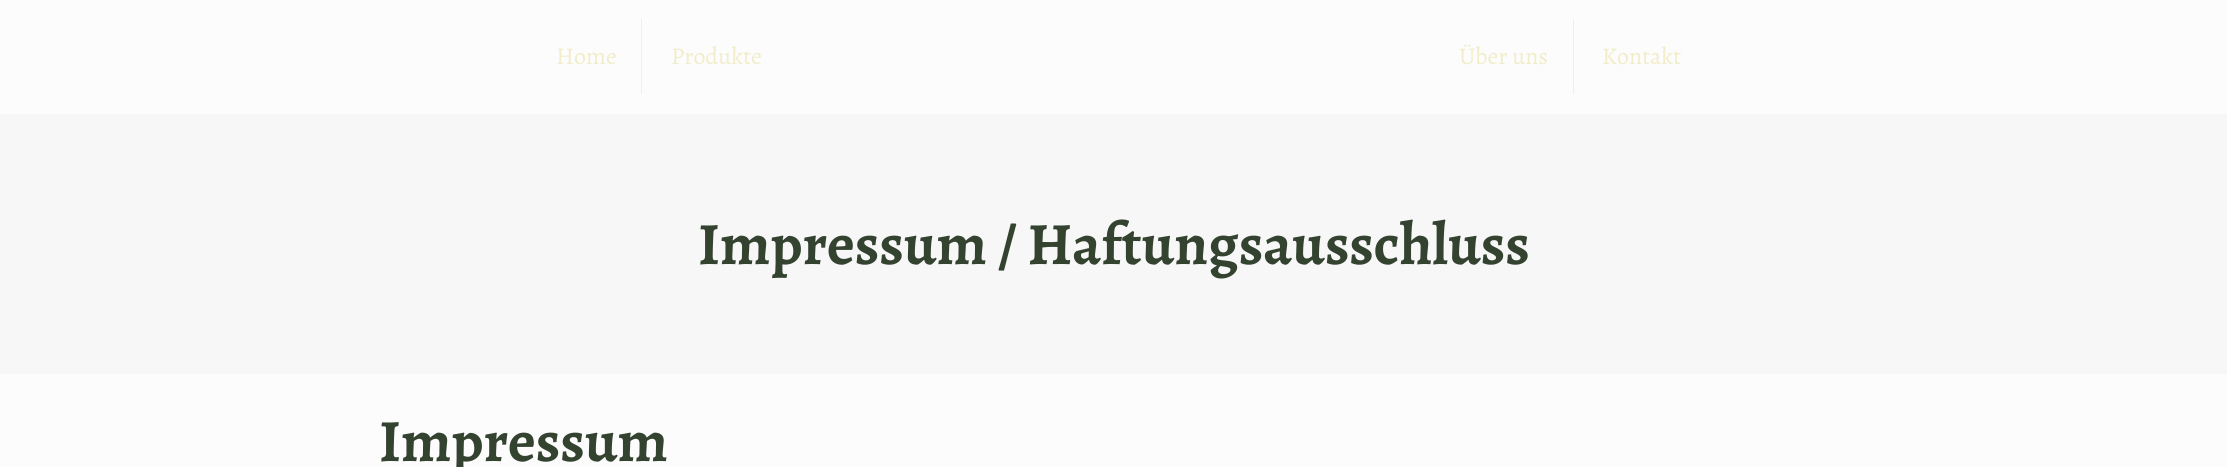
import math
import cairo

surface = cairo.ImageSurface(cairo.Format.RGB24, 2227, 467)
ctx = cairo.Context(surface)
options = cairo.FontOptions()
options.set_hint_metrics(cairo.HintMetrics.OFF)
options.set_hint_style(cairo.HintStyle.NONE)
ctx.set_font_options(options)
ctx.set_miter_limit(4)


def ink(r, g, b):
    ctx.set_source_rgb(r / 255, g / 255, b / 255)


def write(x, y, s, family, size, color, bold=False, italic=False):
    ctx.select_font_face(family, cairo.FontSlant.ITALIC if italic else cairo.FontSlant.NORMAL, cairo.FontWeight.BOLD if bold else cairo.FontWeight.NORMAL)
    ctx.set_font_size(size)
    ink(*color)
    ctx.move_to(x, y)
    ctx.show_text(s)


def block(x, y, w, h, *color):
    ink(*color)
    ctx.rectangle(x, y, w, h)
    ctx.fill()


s1 = dict(family="Alegreya", size=24, color=(241, 237, 201))
s2 = dict(family="Alegreya", size=60, color=(51, 67, 48), bold=True)

ink(252, 252, 252)
ctx.paint()
block(641, 19, 1, 75, 239, 239, 239)
write(556, 64, "Home", **s1)
write(671, 64, "Produkte", **s1)
block(1573, 19, 1, 75, 239, 239, 239)
write(1459, 64, "Über uns", **s1)
write(1602, 64, "Kontakt", **s1)
block(0, 114, 2227, 260, 247, 247, 247)
write(698, 264, "Impressum / Haftungsausschluss", **s2)
write(379, 461, "Impressum", **s2)
surface.write_to_png("screenshot.png")
